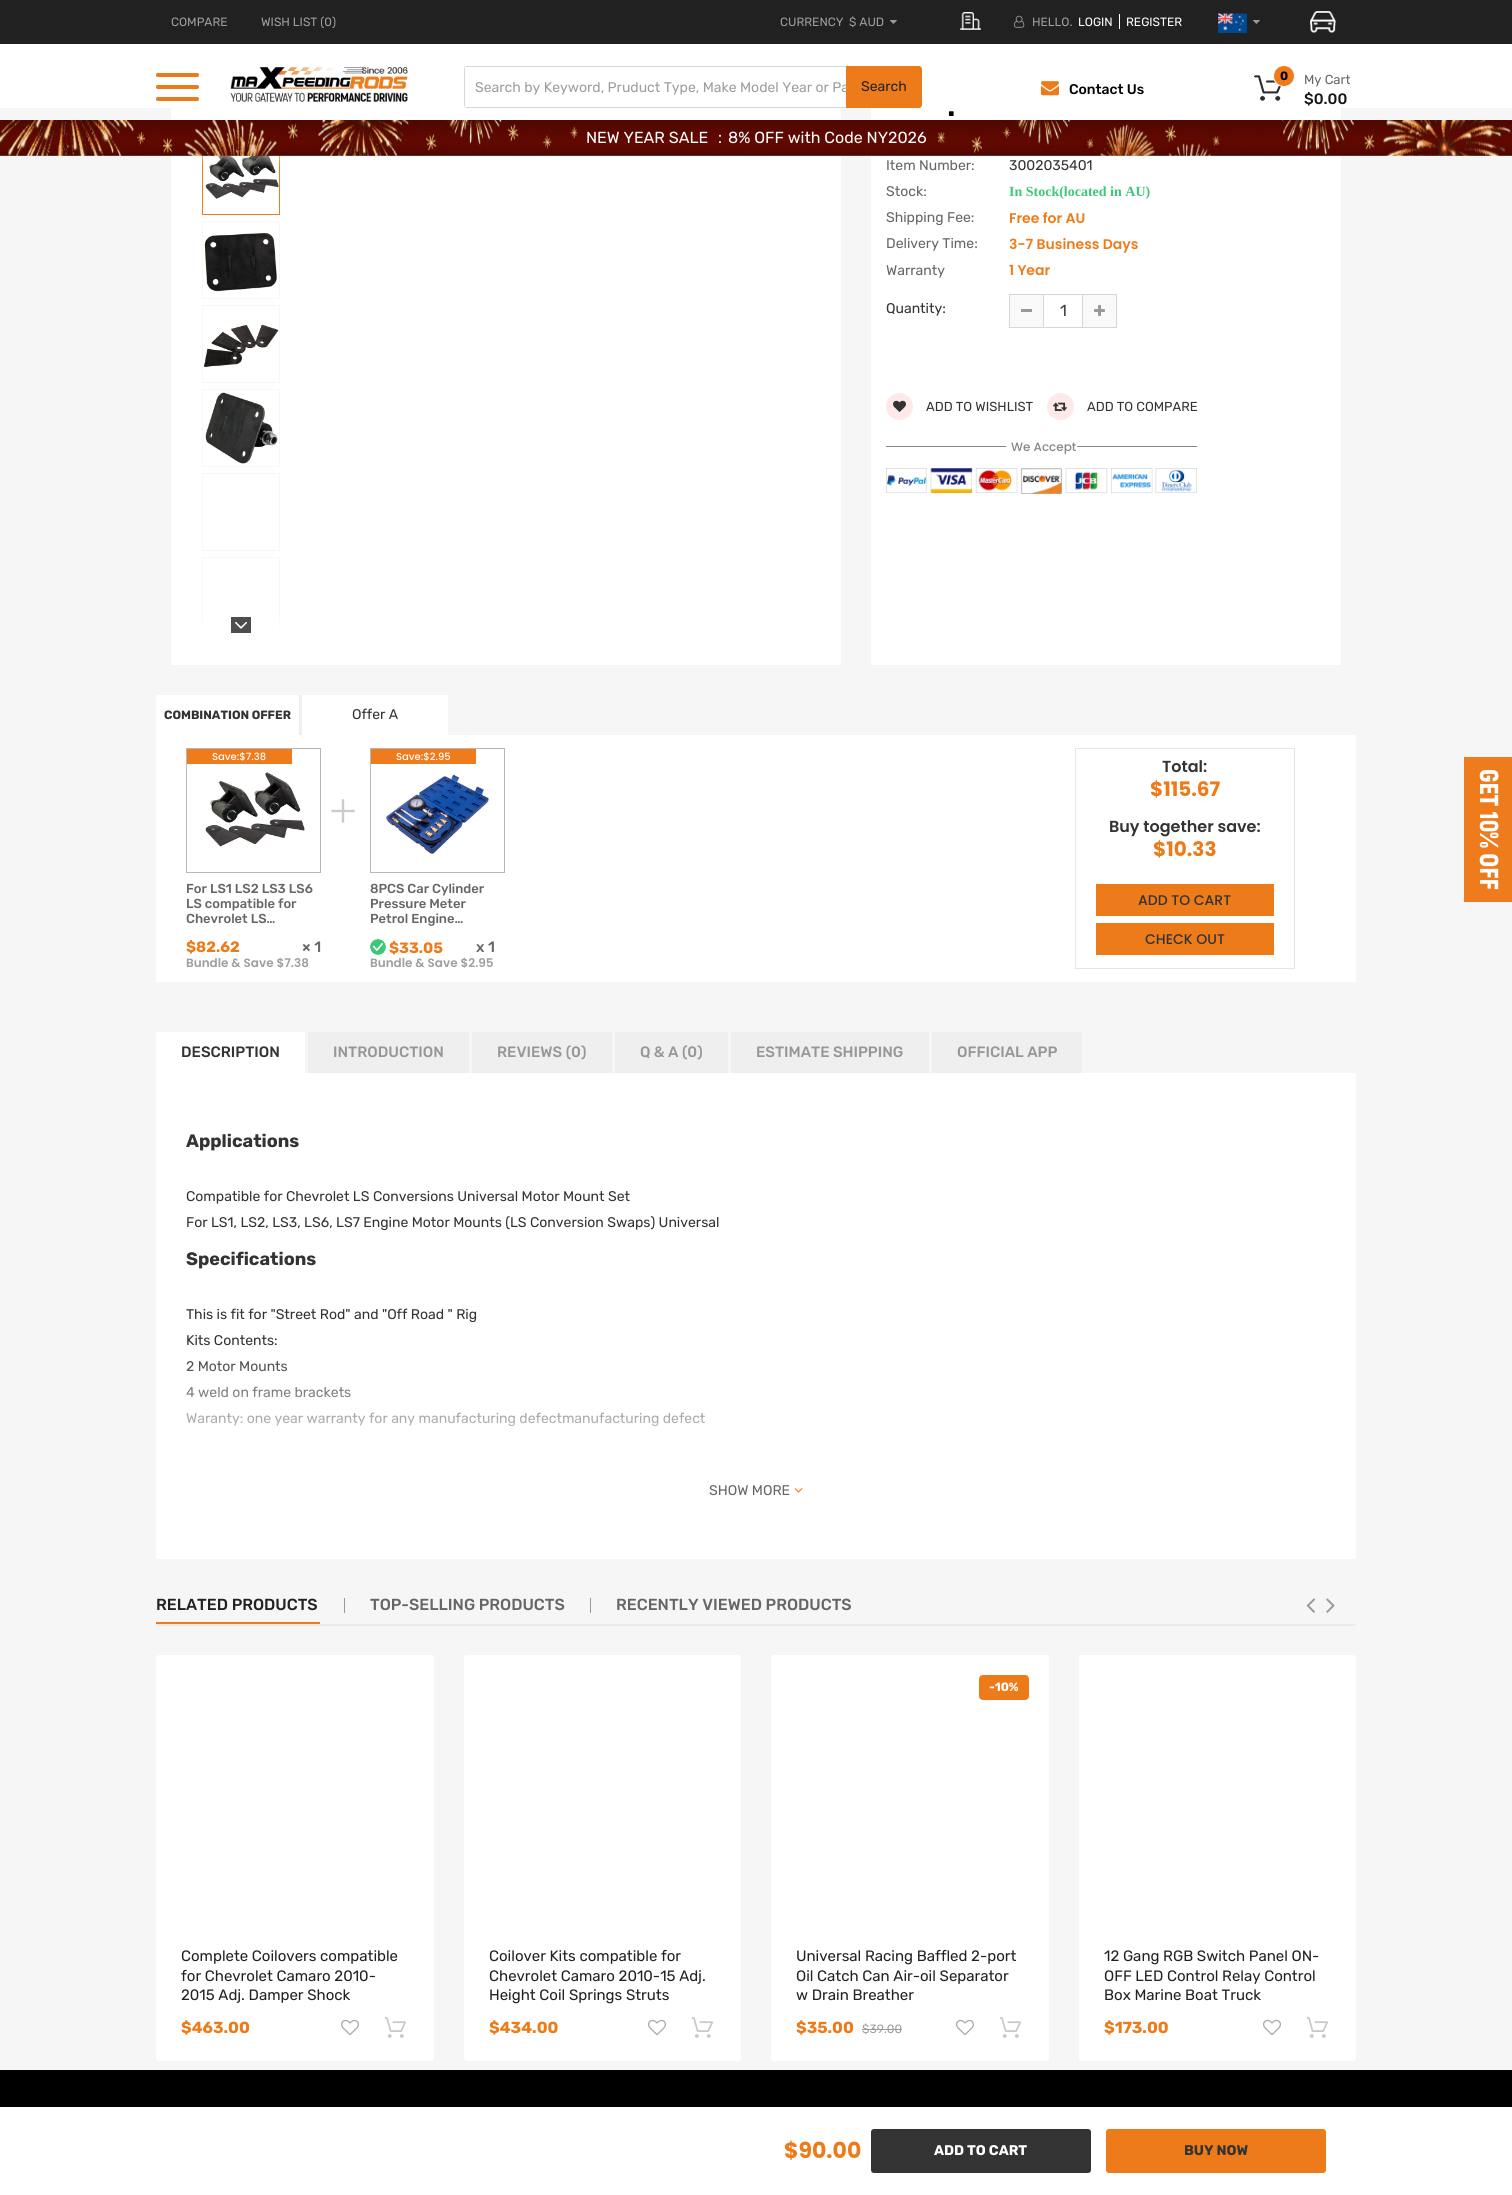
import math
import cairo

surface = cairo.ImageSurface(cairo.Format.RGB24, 1512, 2195)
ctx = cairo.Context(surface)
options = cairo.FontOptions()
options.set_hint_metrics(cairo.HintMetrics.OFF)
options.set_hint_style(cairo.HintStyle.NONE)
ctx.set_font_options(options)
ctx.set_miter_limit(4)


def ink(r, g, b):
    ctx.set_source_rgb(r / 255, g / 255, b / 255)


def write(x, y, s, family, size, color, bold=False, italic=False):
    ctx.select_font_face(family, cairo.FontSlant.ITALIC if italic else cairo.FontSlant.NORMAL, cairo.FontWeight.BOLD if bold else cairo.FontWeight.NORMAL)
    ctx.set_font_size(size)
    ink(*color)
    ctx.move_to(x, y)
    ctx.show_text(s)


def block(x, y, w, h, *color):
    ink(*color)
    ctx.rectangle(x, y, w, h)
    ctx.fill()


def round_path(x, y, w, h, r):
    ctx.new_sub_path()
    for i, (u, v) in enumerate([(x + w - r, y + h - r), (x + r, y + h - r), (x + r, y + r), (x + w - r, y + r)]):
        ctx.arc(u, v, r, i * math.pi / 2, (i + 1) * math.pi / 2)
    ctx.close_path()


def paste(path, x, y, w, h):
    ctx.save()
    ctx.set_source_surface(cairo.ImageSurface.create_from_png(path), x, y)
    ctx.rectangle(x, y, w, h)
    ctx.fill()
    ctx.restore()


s1 = dict(family="Rubik", size=12, color=(158, 158, 158))
s2 = dict(family="Rubik", size=12, color=(255, 255, 255))
s3 = dict(family="Rubik", size=14, color=(158, 158, 158))
s4 = dict(family="Rubik", size=14, color=(34, 34, 34))
s5 = dict(family="Rubik Medium", size=14, color=(0, 0, 0))
s6 = dict(family="Rubik", size=12, color=(0, 0, 0), bold=True)
s7 = dict(family="Rubik Medium", size=15, color=(23, 23, 23))
s8 = dict(family="Rubik", size=13, color=(102, 102, 102))
s9 = dict(family="Rubik", size=16, color=(255, 255, 255))
s10 = dict(family="WenQuanYi Zen Hei Medium", size=16, color=(255, 255, 255))
s11 = dict(family="Rubik Medium", size=32, color=(0, 0, 0))
s12 = dict(family="Rubik", size=14, color=(102, 102, 102))
s13 = dict(family="Rubik", size=14, color=(51, 51, 51))
s14 = dict(family="Liberation Serif", size=14, color=(60, 200, 120), bold=True)
s15 = dict(family="Poppins SemiBold", size=14, color=(238, 123, 26))
s16 = dict(family="Rubik", size=16, color=(61, 61, 61))
s17 = dict(family="Rubik", size=13, color=(51, 51, 51))
s18 = dict(family="Poppins Medium", size=12, color=(136, 134, 134))
s19 = dict(family="Poppins", size=22, color=(238, 123, 26), bold=True)
s20 = dict(family="Rubik", size=14, color=(255, 255, 255), bold=True)
s21 = dict(family="Rubik", size=14, color=(51, 51, 51), bold=True)
s22 = dict(family="Rubik", size=12, color=(51, 51, 51), bold=True)
s23 = dict(family="Poppins Medium", size=10, color=(255, 255, 255))
s24 = dict(family="Rubik Medium", size=13, color=(102, 102, 102))
s25 = dict(family="Rubik", size=15, color=(238, 123, 26), bold=True)
s26 = dict(family="Rubik Medium", size=15, color=(102, 102, 102))
s27 = dict(family="Poppins SemiBold", size=12, color=(158, 158, 158))
s28 = dict(family="Poppins SemiBold", size=16, color=(51, 51, 51))
s29 = dict(family="Poppins", size=20, color=(238, 123, 26), bold=True)
s30 = dict(family="Poppins Medium", size=14, color=(51, 51, 51))
s31 = dict(family="Rubik Medium", size=15, color=(51, 51, 51))
s32 = dict(family="Rubik Medium", size=15, color=(151, 151, 151))
s33 = dict(family="Rubik", size=18, color=(51, 51, 51), bold=True)
s34 = dict(family="Rubik Medium", size=16, color=(34, 34, 34))
s35 = dict(family="Rubik Medium", size=16, color=(102, 102, 102))
s36 = dict(family="Rubik", size=15, color=(34, 34, 34))
s37 = dict(family="Rubik", size=16, color=(238, 123, 26), bold=True)
s38 = dict(family="Rubik", size=12, color=(255, 255, 255), bold=True)
s39 = dict(family="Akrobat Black", size=26, color=(255, 255, 255))

ink(246, 246, 246)
ctx.paint()
block(0, 0, 1512, 44, 33, 33, 33)
write(171, 26, "COMPARE", **s1)
write(261, 26, "WISH LIST (0)", **s1)
write(780, 26, "CURRENCY", **s1)
write(849, 26, "$ AUD", **s1)
paste("pic1.png", 890, 20, 7, 4)
paste("pic2.png", 960, 12, 21, 18)
paste("pic3.png", 1014, 15, 11, 13)
write(1032, 26, "HELLO.", **s1)
write(1078, 26, "LOGIN", **s2)
block(1119, 14, 1, 15, 255, 255, 255)
write(1126, 26, "REGISTER", **s2)
paste("pic4.png", 1218, 13, 29, 20)
paste("pic1.png", 1253, 20, 7, 4)
paste("pic5.png", 1310, 11, 26, 22)
block(0, 44, 1512, 64, 255, 255, 255)
paste("pic6.png", 156, 73, 43, 28)
paste("pic7.png", 230, 67, 178, 35)
round_path(464.5, 66.5, 456, 41, 2.5)
ink(215, 215, 215)
ctx.set_line_width(1)
ctx.stroke()
block(465, 67, 2, 40, 255, 255, 255)
write(475, 92, "Search by Keyword, Pruduct Type, Make Model Year or Pa", **s3)
ink(238, 123, 26)
ctx.new_path()
ctx.move_to(846, 66)
ctx.line_to(919, 66)
ctx.curve_to(920.5, 66, 922, 67.5, 922, 69)
ctx.line_to(922, 105)
ctx.curve_to(922, 106.5, 920.5, 108, 919, 108)
ctx.line_to(846, 108)
ctx.close_path()
ctx.fill()
write(861, 91, "Search", **s4)
paste("pic8.png", 1041, 81, 18, 15)
write(1069, 94, "Contact Us", **s5)
paste("pic9.png", 1254, 75, 27, 26)
ink(238, 123, 26)
ctx.arc(1284, 76, 10.5, 0, 2 * math.pi)
ctx.fill_preserve()
ink(255, 255, 255)
ctx.stroke()
write(1280, 80, "0", **s6)
write(1304, 104, "$0.00", **s7)
write(1304, 84, "My Cart", **s8)
block(171, 108, 670, 557, 255, 255, 255)
ctx.rectangle(202.5, 137.5, 77, 77)
ink(238, 123, 26)
ctx.stroke()
paste("pic11.png", 205, 155, 74, 44)
gradient = cairo.LinearGradient(241, 137, 241, 167)
gradient.add_color_stop_rgba(0, 1, 1, 1, 0.9)
gradient.add_color_stop_rgba(1, 1, 1, 1, 0)
gradient.add_color_stop_rgba(1, 1, 1, 1, 1)
ctx.set_source(gradient)
ctx.rectangle(202, 155, 78, 11)
ctx.fill()
block(871, 108, 470, 557, 255, 255, 255)
paste("pic10.png", 0, 120, 1512, 36)
write(586, 143, "NEW YEAR SALE", **s9)
write(712, 143, "：", **s10)
write(728, 143, "8% OFF with Code NY2026", **s9)
ctx.rectangle(202.5, 221.5, 77, 77)
ink(247, 247, 247)
ctx.stroke()
paste("pic12.png", 204, 233, 73, 59)
ctx.rectangle(202.5, 305.5, 77, 77)
ctx.stroke()
paste("pic13.png", 204, 324, 75, 43)
ctx.rectangle(202.5, 389.5, 77, 77)
ctx.stroke()
paste("pic14.png", 205, 392, 73, 72)
ctx.rectangle(202.5, 473.5, 77, 77)
ctx.stroke()
ctx.save()
ctx.rectangle(202, 137, 78, 496)
ctx.clip()
ctx.rectangle(202.5, 557.5, 77, 77)
ctx.stroke()
ctx.restore()
gradient = cairo.LinearGradient(241, 603, 241, 633)
gradient.add_color_stop_rgba(0, 1, 1, 1, 0)
gradient.add_color_stop_rgba(1, 1, 1, 1, 0.9)
gradient.add_color_stop_rgba(1, 1, 1, 1, 1)
ctx.set_source(gradient)
ctx.rectangle(202, 614, 78, 19)
ctx.fill()
block(231, 617, 20, 16, 77, 77, 77)
paste("pic15.png", 235, 622, 12, 7)
write(947, 116, ".", **s11)
write(886, 170, "Item Number:", **s12)
write(1009, 170, "3002035401", **s13)
write(886, 196, "Stock:", **s12)
write(1009, 196, "In Stock(located in AU)", **s14)
write(886, 222, "Shipping Fee:", **s12)
write(1009, 223, "Free for AU", **s15)
write(886, 248, "Delivery Time:", **s12)
write(1009, 249, "3-7 Business Days", **s15)
write(886, 275, "Warranty", **s12)
write(1009, 275, "1 Year", **s15)
write(886, 313, "Quantity:", **s13)
ctx.rectangle(1009.5, 294.5, 107, 33)
ink(214, 214, 214)
ctx.stroke()
block(1010, 295, 33, 32, 249, 249, 249)
block(1021, 309, 11, 3, 153, 153, 153)
block(1082, 295, 1, 32, 214, 214, 214)
block(1043, 295, 1, 32, 214, 214, 214)
write(1060, 316, "1", **s16)
block(1083, 295, 33, 32, 249, 249, 249)
paste("pic16.png", 1094, 305, 11, 11)
ink(255, 232, 232)
ctx.arc(899.5, 406.5, 13, 0, 2 * math.pi)
ctx.fill_preserve()
ctx.stroke()
paste("pic17.png", 893, 400, 13, 12)
write(926, 411, "ADD TO WISHLIST", **s17)
ink(255, 232, 232)
ctx.new_path()
ctx.arc(1060.5, 406.5, 13, 0, 2 * math.pi)
ctx.fill_preserve()
ctx.stroke()
paste("pic18.png", 1053, 402, 14, 9)
write(1087, 411, "ADD TO COMPARE", **s17)
block(886, 446, 120, 1, 136, 134, 134)
write(1011, 451, "We Accept", **s18)
block(1077, 446, 120, 1, 136, 134, 134)
paste("pic19.png", 886, 468, 311, 26)
block(0, 2107, 1512, 88, 255, 255, 255)
write(784, 2158, "$90.00", **s19)
ink(51, 51, 51)
round_path(871, 2129, 220, 44, 3)
ctx.fill()
write(934, 2155, "ADD TO CART", **s20)
ink(238, 123, 26)
round_path(1106, 2129, 220, 44, 3)
ctx.fill()
write(1184, 2155, "BUY NOW", **s21)
block(156, 695, 143, 40, 255, 255, 255)
block(299, 695, 3, 40, 239, 239, 239)
write(164, 719, "COMBINATION OFFER", **s22)
block(302, 695, 146, 40, 255, 255, 255)
write(352, 719, "Offer A", **s13)
block(156, 735, 1200, 247, 255, 255, 255)
ctx.rectangle(186.5, 748.5, 134, 124)
ink(183, 183, 183)
ctx.stroke()
paste("pic20.png", 205, 772, 100, 75)
block(187, 749, 105, 15, 239, 124, 28)
write(212, 760, "Save:$7.38", **s23)
write(186, 893, "For LS1 LS2 LS3 LS6", **s24)
write(186, 908, "LS compatible for", **s24)
write(186, 923, "Chevrolet LS…", **s24)
write(186, 952, "$82.62", **s25)
write(302, 952, "× 1", **s26)
write(186, 967, "Bundle & Save $7.38", **s27)
paste("pic21.png", 331, 799, 24, 24)
ctx.rectangle(370.5, 748.5, 134, 124)
ink(183, 183, 183)
ctx.stroke()
block(371, 749, 105, 15, 239, 124, 28)
write(396, 760, "Save:$2.95", **s23)
paste("pic22.png", 386, 774, 103, 80)
write(370, 893, "8PCS Car Cylinder", **s24)
write(370, 908, "Pressure Meter", **s24)
write(370, 923, "Petrol Engine…", **s24)
paste("pic23.png", 370, 939, 16, 16)
write(389, 953, "$33.05", **s25)
write(476, 952, "x 1", **s26)
write(370, 967, "Bundle & Save $2.95", **s27)
ctx.rectangle(1075.5, 748.5, 219, 220)
ink(230, 230, 230)
ctx.stroke()
write(1162, 772, "Total:", **s28)
write(1150, 796, "$115.67", **s29)
write(1109, 832, "Buy together save:", **s28)
write(1153, 856, "$10.33", **s29)
block(1096, 884, 178, 32, 238, 123, 26)
write(1138, 905, "ADD TO CART", **s30)
block(1096, 923, 178, 32, 238, 123, 26)
write(1145, 944, "CHECK OUT", **s30)
block(156, 1032, 149, 41, 255, 255, 255)
write(181, 1057, "DESCRIPTION", **s31)
block(308, 1032, 161, 41, 239, 239, 239)
write(333, 1057, "INTRODUCTION", **s32)
block(472, 1032, 140, 41, 239, 239, 239)
write(497, 1057, "REVIEWS (0)", **s32)
block(615, 1032, 113, 41, 239, 239, 239)
write(640, 1057, "Q & A (0)", **s32)
block(731, 1032, 198, 41, 239, 239, 239)
write(756, 1057, "ESTIMATE SHIPPING", **s32)
block(932, 1032, 150, 41, 239, 239, 239)
write(957, 1057, "OFFICIAL APP", **s32)
block(156, 1073, 1200, 486, 255, 255, 255)
write(186, 1147, "Applications", **s33)
write(186, 1201, "Compatible for Chevrolet LS Conversions Universal Motor Mount Set", **s13)
write(186, 1227, "For LS1, LS2, LS3, LS6, LS7 Engine Motor Mounts (LS Conversion Swaps) Universal", **s13)
write(186, 1265, "Specifications", **s33)
write(186, 1319, "This is fit for \"Street Rod\" and \"Off Road \" Rig", **s13)
write(186, 1345, "Kits Contents:", **s13)
write(186, 1371, "2 Motor Mounts", **s13)
write(186, 1397, "4 weld on frame brackets", **s13)
write(186, 1423, "Waranty: one year warranty for any manufacturing defectmanufacturing defect", **s13)
gradient = cairo.LinearGradient(756, 1348, 756, 1468)
gradient.add_color_stop_rgba(0, 1, 1, 1, 0)
gradient.add_color_stop_rgba(1, 1, 1, 1, 1)
ctx.set_source(gradient)
ctx.rectangle(186, 1361, 519, 66)
ctx.fill()
write(709, 1495, "SHOW MORE", **s12)
paste("pic24.png", 794, 1488, 9, 5)
block(156, 1624, 1200, 2, 235, 235, 235)
block(156, 1622, 164, 2, 238, 123, 26)
write(156, 1610, "RELATED PRODUCTS", **s34)
block(344, 1598, 1, 15, 153, 153, 153)
write(370, 1610, "TOP-SELLING PRODUCTS", **s35)
block(590, 1598, 1, 15, 153, 153, 153)
write(616, 1610, "RECENTLY VIEWED PRODUCTS", **s35)
paste("pic25.png", 1306, 1598, 9, 15)
paste("pic26.png", 1326, 1598, 9, 15)
ink(255, 255, 255)
round_path(156, 1655, 278, 406, 3)
ctx.fill()
write(181, 1961, "Complete Coilovers compatible", **s36)
write(181, 1981, "for Chevrolet Camaro 2010-", **s36)
write(181, 2000, "2015 Adj. Damper Shock", **s36)
write(181, 2033, "$463.00", **s37)
paste("pic27.png", 341, 2019, 18, 17)
paste("pic28.png", 385, 2017, 21, 21)
ink(255, 255, 255)
round_path(464, 1655, 277, 406, 3)
ctx.fill()
write(489, 1961, "Coilover Kits compatible for", **s36)
write(489, 1981, "Chevrolet Camaro 2010-15 Adj.", **s36)
write(489, 2000, "Height Coil Springs Struts", **s36)
write(489, 2033, "$434.00", **s37)
paste("pic27.png", 648, 2019, 18, 17)
paste("pic28.png", 692, 2017, 21, 21)
ink(255, 255, 255)
round_path(771, 1655, 278, 406, 3)
ctx.fill()
ink(238, 123, 26)
round_path(979, 1675, 50, 25, 4)
ctx.fill()
write(989, 1691, "-10%", **s38)
write(796, 1961, "Universal Racing Baffled 2-port", **s36)
write(796, 1981, "Oil Catch Can Air-oil Separator", **s36)
write(796, 2000, "w Drain Breather", **s36)
write(796, 2033, "$35.00", **s37)
write(862, 2033, "$39.00", **s1)
block(862, 2029, 40, 1, 153, 153, 153)
paste("pic27.png", 956, 2019, 18, 17)
paste("pic28.png", 1000, 2017, 21, 21)
ink(255, 255, 255)
round_path(1079, 1655, 277, 406, 3)
ctx.fill()
write(1104, 1961, "12 Gang RGB Switch Panel ON-", **s36)
write(1104, 1981, "OFF LED Control Relay Control", **s36)
write(1104, 2000, "Box Marine Boat Truck", **s36)
write(1104, 2033, "$173.00", **s37)
paste("pic27.png", 1263, 2019, 18, 17)
paste("pic28.png", 1307, 2017, 21, 21)
block(1464, 757, 48, 145, 239, 124, 28)
ctx.save()
ctx.translate(1480, 769)
ctx.rotate(90 * math.pi / 180)
write(0, 0, "GET 10% OFF", **s39)
ctx.restore()
block(0, 2070, 1512, 37, 0, 0, 0)
surface.write_to_png("screenshot.png")
